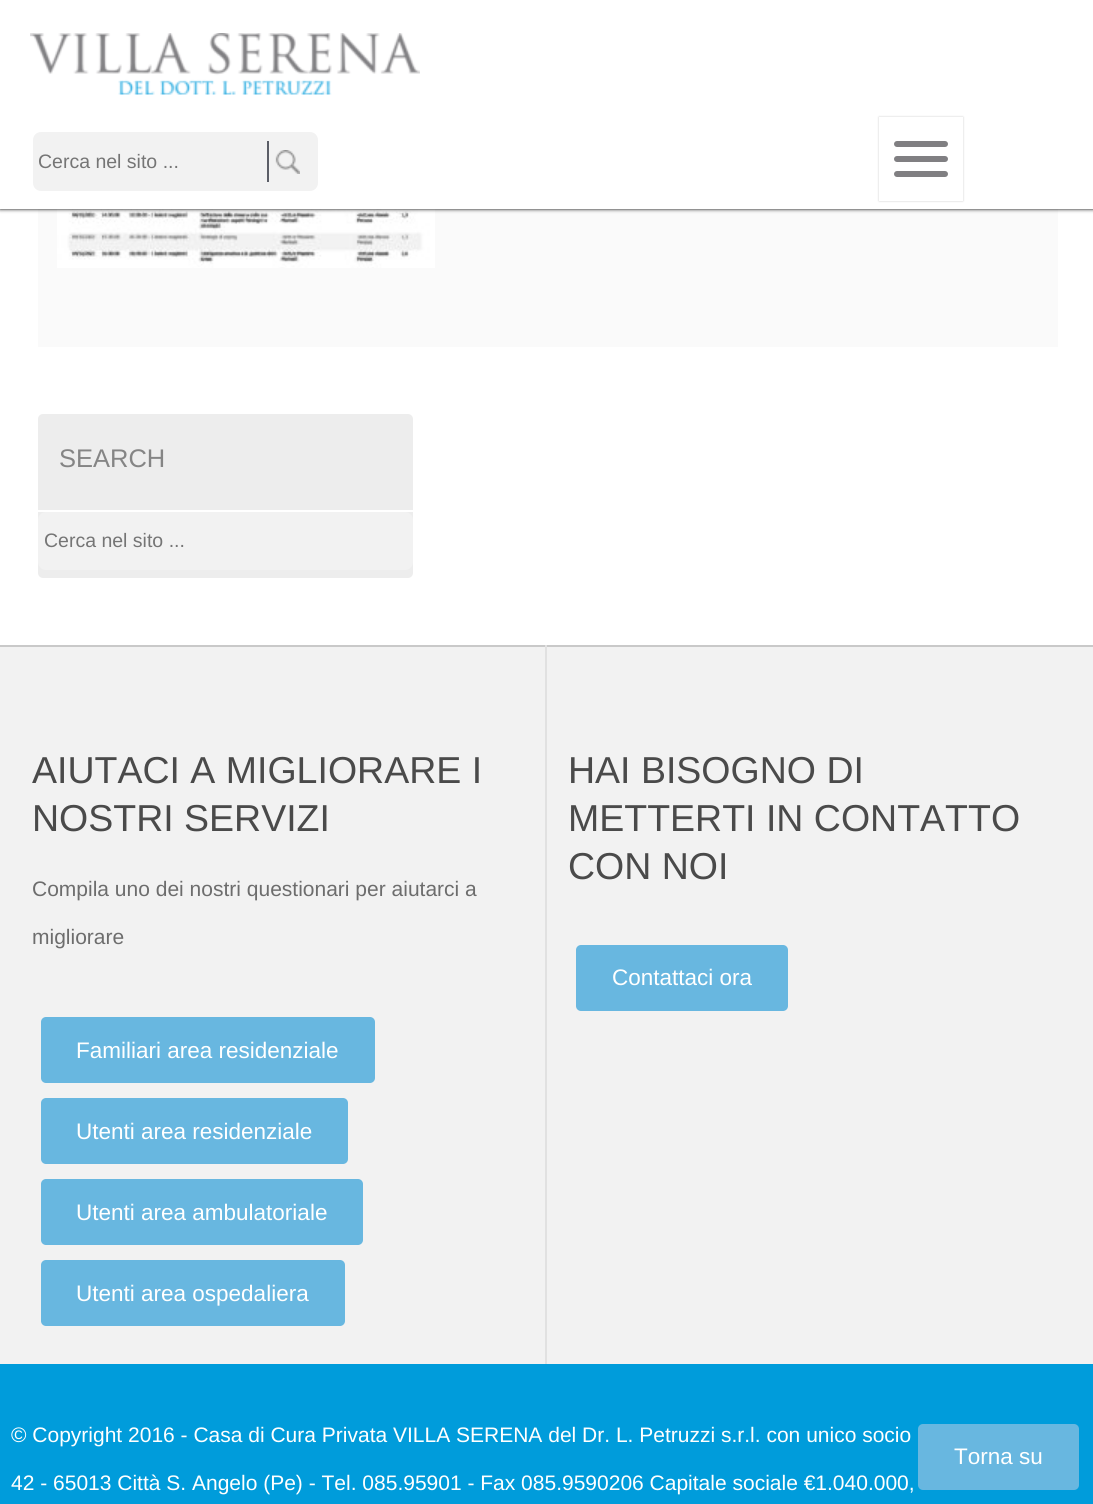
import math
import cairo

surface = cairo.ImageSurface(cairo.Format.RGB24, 1093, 1504)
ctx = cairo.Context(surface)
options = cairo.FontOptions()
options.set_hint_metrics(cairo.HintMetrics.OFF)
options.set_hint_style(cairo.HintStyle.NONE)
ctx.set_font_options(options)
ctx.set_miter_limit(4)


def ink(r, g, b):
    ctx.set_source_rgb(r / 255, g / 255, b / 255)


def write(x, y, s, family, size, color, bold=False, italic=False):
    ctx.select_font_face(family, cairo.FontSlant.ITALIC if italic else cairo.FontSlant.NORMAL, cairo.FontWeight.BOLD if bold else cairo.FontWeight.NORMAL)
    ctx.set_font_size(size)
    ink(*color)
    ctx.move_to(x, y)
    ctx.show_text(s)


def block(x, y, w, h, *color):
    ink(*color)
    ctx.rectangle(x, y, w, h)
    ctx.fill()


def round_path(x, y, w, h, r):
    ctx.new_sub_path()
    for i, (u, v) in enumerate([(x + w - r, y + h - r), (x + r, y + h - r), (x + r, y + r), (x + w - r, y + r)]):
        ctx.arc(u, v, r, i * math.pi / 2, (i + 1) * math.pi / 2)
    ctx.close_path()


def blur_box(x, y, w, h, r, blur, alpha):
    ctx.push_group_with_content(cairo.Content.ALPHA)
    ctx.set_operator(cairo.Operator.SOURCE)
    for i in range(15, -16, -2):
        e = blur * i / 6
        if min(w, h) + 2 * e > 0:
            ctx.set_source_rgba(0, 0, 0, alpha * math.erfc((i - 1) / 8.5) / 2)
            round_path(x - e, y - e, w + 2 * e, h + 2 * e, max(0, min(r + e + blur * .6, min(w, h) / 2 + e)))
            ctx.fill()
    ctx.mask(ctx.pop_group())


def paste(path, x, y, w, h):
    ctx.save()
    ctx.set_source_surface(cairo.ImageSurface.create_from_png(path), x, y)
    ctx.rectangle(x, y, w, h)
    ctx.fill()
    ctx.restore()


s1 = dict(family="Liberation Sans", size=19.5, color=(117, 117, 117))
s2 = dict(family="Liberation Sans", size=25.5, color=(133, 133, 133))
s3 = dict(family="Liberation Sans", size=37.5, color=(74, 74, 74))
s4 = dict(family="Liberation Sans", size=21, color=(109, 109, 109))
s5 = dict(family="Liberation Sans", size=22.5, color=(255, 255, 255))
s6 = dict(family="Liberation Sans", size=21, color=(255, 255, 255))

ink(0, 156, 219)
ctx.paint()
block(0, 209, 1093, 436, 255, 255, 255)
block(38, 209, 1020, 138, 250, 250, 250)
paste("pic3.png", 57, 209, 378, 59)
ink(0, 0, 0)
blur_box(0, 0, 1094, 209, 0, 2, 1)
block(0, 0, 1093, 209, 255, 255, 255)
paste("pic1.png", 30, 33, 390, 62)
ink(242, 242, 242)
round_path(33, 132, 285, 59, 8)
ctx.fill()
write(38, 168, "Cerca nel sito ...", **s1)
block(267, 141, 2, 41, 91, 94, 103)
paste("pic2.png", 275, 150, 25, 24)
ctx.save()
ctx.set_fill_rule(cairo.FillRule.EVEN_ODD)
ctx.new_path()
ctx.move_to(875, 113)
ctx.line_to(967, 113)
ctx.line_to(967, 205)
ctx.line_to(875, 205)
ctx.close_path()
ctx.move_to(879, 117)
ctx.line_to(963, 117)
ctx.line_to(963, 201)
ctx.line_to(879, 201)
ctx.close_path()
ctx.clip()
ink(204, 204, 204)
blur_box(879, 117, 84, 84, 0, 1, 1)
ctx.restore()
ink(128, 127, 130)
round_path(894, 141, 54, 6, 3)
ctx.fill()
round_path(894, 156, 54, 6, 3)
ctx.fill()
round_path(894, 171, 54, 6, 3)
ctx.fill()
ink(237, 237, 237)
round_path(38, 414, 375, 164, 5)
ctx.fill()
block(38, 510, 375, 2, 255, 255, 255)
write(59, 467, "SEARCH", **s2)
ink(242, 242, 242)
round_path(38, 512, 375, 58, 8)
ctx.fill()
write(44, 547, "Cerca nel sito ...", **s1)
block(0, 647, 1093, 717, 242, 242, 242)
block(0, 645, 1093, 2, 201, 201, 201)
block(545, 645, 2, 719, 225, 225, 225)
write(32, 783, "AIUTACI A MIGLIORARE I", **s3)
write(32, 831, "NOSTRI SERVIZI", **s3)
write(32, 896, "Compila uno dei nostri questionari per aiutarci a", **s4)
write(32, 944, "migliorare", **s4)
ink(104, 183, 224)
round_path(41, 1017, 334, 66, 5)
ctx.fill()
write(76, 1058, "Familiari area residenziale", **s5)
ink(104, 183, 224)
round_path(41, 1098, 307, 66, 5)
ctx.fill()
write(76, 1139, "Utenti area residenziale", **s5)
ink(104, 183, 224)
round_path(41, 1179, 322, 66, 5)
ctx.fill()
write(76, 1220, "Utenti area ambulatoriale", **s5)
ink(104, 183, 224)
round_path(41, 1260, 304, 66, 5)
ctx.fill()
write(76, 1301, "Utenti area ospedaliera", **s5)
write(568, 783, "HAI BISOGNO DI", **s3)
write(568, 831, "METTERTI IN CONTATTO", **s3)
write(568, 879, "CON NOI", **s3)
ink(104, 183, 224)
round_path(576, 945, 212, 66, 5)
ctx.fill()
write(612, 985, "Contattaci ora", **s5)
write(11, 1442, "© Copyright 2016 - Casa di Cura Privata VILLA SERENA del Dr. L. Petruzzi s.r.l. con unico socio", **s6)
write(11, 1490, "42 - 65013 Città S. Angelo (Pe) - Tel. 085.95901 - Fax 085.9590206 Capitale sociale €1.040.000,", **s6)
ink(104, 183, 224)
round_path(918, 1424, 161, 66, 5)
ctx.fill()
write(954, 1464, "Torna su", **s5)
surface.write_to_png("screenshot.png")
